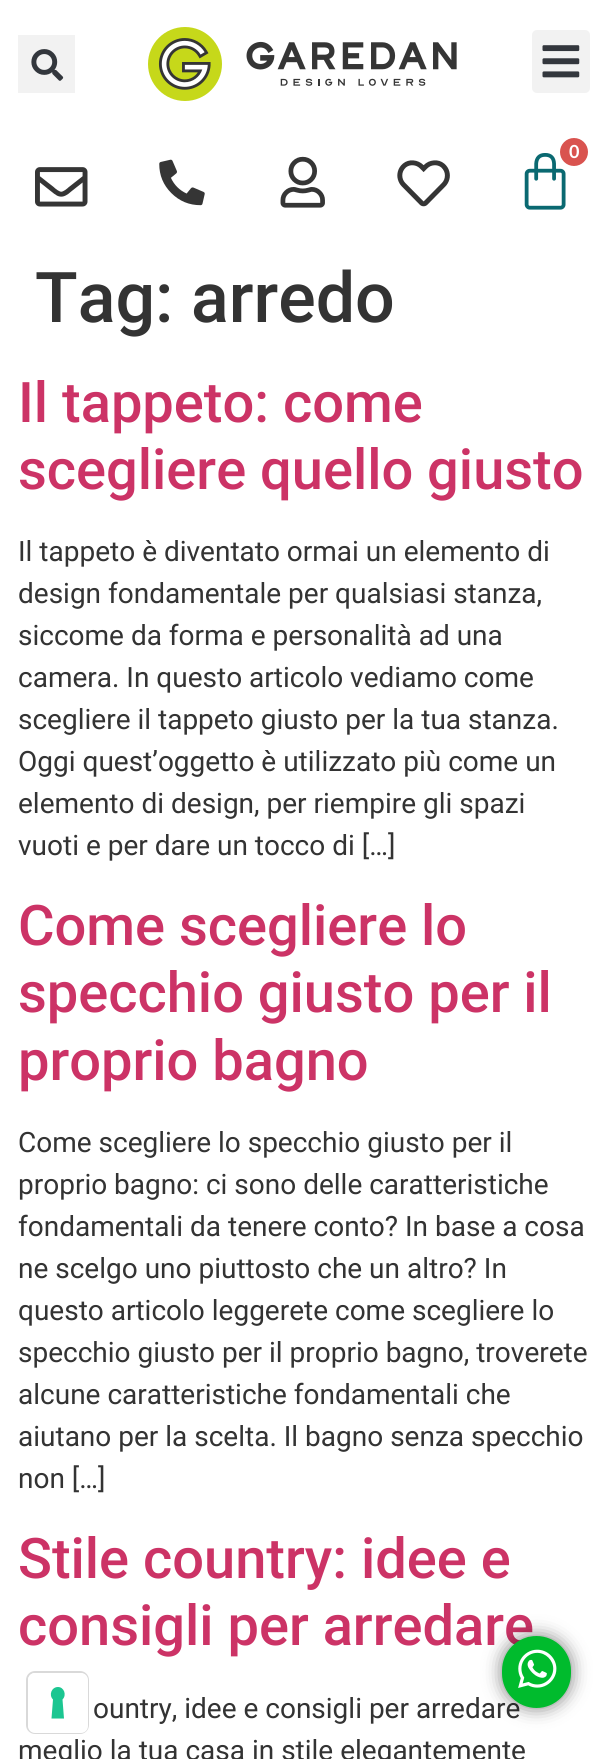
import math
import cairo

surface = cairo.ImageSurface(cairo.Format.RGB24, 605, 1759)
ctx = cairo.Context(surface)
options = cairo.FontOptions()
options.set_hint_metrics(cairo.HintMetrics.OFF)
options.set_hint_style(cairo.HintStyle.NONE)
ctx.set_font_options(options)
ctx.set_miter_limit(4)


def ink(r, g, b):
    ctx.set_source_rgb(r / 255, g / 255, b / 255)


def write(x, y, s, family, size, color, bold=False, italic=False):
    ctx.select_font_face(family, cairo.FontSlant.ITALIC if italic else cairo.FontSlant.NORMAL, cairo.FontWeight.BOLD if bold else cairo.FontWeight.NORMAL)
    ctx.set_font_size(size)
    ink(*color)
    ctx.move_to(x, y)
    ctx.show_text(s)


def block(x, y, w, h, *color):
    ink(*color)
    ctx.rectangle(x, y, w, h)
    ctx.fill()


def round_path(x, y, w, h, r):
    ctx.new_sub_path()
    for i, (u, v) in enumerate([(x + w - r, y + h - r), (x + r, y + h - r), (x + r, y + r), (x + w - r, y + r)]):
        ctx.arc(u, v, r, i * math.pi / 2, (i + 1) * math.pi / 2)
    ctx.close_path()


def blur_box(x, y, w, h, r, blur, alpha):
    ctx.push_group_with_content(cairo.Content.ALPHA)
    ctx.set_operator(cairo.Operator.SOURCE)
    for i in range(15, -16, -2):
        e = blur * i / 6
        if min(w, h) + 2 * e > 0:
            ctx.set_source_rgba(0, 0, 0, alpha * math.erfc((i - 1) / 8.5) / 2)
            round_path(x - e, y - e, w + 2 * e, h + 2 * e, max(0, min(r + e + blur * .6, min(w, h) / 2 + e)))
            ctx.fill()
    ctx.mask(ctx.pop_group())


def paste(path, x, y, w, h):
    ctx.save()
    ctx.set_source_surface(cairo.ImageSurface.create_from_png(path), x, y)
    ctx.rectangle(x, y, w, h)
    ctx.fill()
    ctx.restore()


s1 = dict(family="Lato", size=18, color=(255, 255, 255), bold=True)
s2 = dict(family="Roboto Medium", size=70, color=(51, 51, 51))
s3 = dict(family="Roboto Medium", size=56, color=(204, 51, 102))
s4 = dict(family="Roboto", size=28, color=(51, 51, 51))

ink(255, 255, 255)
ctx.paint()
block(18, 35, 57, 58, 242, 242, 242)
paste("pic1.png", 31, 49, 33, 32)
paste("pic2.png", 148, 27, 309, 74)
round_path(532, 30, 58, 63, 5)
ctx.fill()
paste("pic3.png", 542, 45, 38, 33)
paste("pic4.png", 524, 153, 42, 57)
ink(217, 83, 79)
ctx.arc(574, 152, 14, 0, 2 * math.pi)
ctx.fill()
write(569, 158, "0", **s1)
paste("pic5.png", 35, 167, 53, 40)
paste("pic6.png", 159, 159, 46, 47)
paste("pic7.png", 280, 156, 45, 52)
paste("pic8.png", 397, 160, 53, 47)
write(35, 322, "Tag: arredo", **s2)
write(18, 422, "Il tappeto: come", **s3)
write(18, 489, "scegliere quello giusto", **s3)
write(18, 561, "Il tappeto è diventato ormai un elemento di", **s4)
write(18, 603, "design fondamentale per qualsiasi stanza,", **s4)
write(18, 645, "siccome da forma e personalità ad una", **s4)
write(18, 687, "camera. In questo articolo vediamo come", **s4)
write(18, 729, "scegliere il tappeto giusto per la tua stanza.", **s4)
write(18, 771, "Oggi quest’oggetto è utilizzato più come un", **s4)
write(18, 813, "elemento di design, per riempire gli spazi", **s4)
write(18, 855, "vuoti e per dare un tocco di […]", **s4)
write(18, 945, "Come scegliere lo", **s3)
write(18, 1012, "specchio giusto per il", **s3)
write(18, 1080, "proprio bagno", **s3)
write(18, 1152, "Come scegliere lo specchio giusto per il", **s4)
write(18, 1194, "proprio bagno: ci sono delle caratteristiche", **s4)
write(18, 1236, "fondamentali da tenere conto? In base a cosa", **s4)
write(18, 1278, "ne scelgo uno piuttosto che un altro? In", **s4)
write(18, 1320, "questo articolo leggerete come scegliere lo", **s4)
write(18, 1362, "specchio giusto per il proprio bagno, troverete", **s4)
write(18, 1404, "alcune caratteristiche fondamentali che", **s4)
write(18, 1446, "aiutano per la scelta. Il bagno senza specchio", **s4)
write(18, 1488, "non […]", **s4)
write(18, 1578, "Stile country: idee e", **s3)
write(18, 1645, "consigli per arredare", **s3)
write(93, 1718, "ountry, idee e consigli per arredare", **s4)
write(18, 1760, "meglio la tua casa in stile elegantemente", **s4)
round_path(27, 1672, 61, 61, 8)
ctx.set_source_rgba(0, 0, 0, 0.15)
ctx.stroke()
ink(255, 255, 255)
round_path(28, 1673, 60, 60, 7)
ctx.fill()
ink(28, 198, 145)
ctx.set_fill_rule(cairo.FillRule.EVEN_ODD)
ctx.new_path()
ctx.move_to(58, 1687)
ctx.curve_to(64, 1687, 67, 1695, 62.5, 1699.5)
ctx.line_to(64, 1718.5)
ctx.line_to(51.5, 1718.5)
ctx.line_to(53, 1699.5)
ctx.curve_to(48.5, 1695, 51.5, 1687, 58, 1687)
ctx.close_path()
ctx.fill()
ink(0, 0, 0)
blur_box(502, 1636, 69, 72, 34.5, 9, 0.5)
ink(0, 187, 45)
round_path(502, 1636, 69, 72, 34.5)
ctx.fill()
paste("pic9.png", 518, 1649, 39, 39)
surface.write_to_png("screenshot.png")
